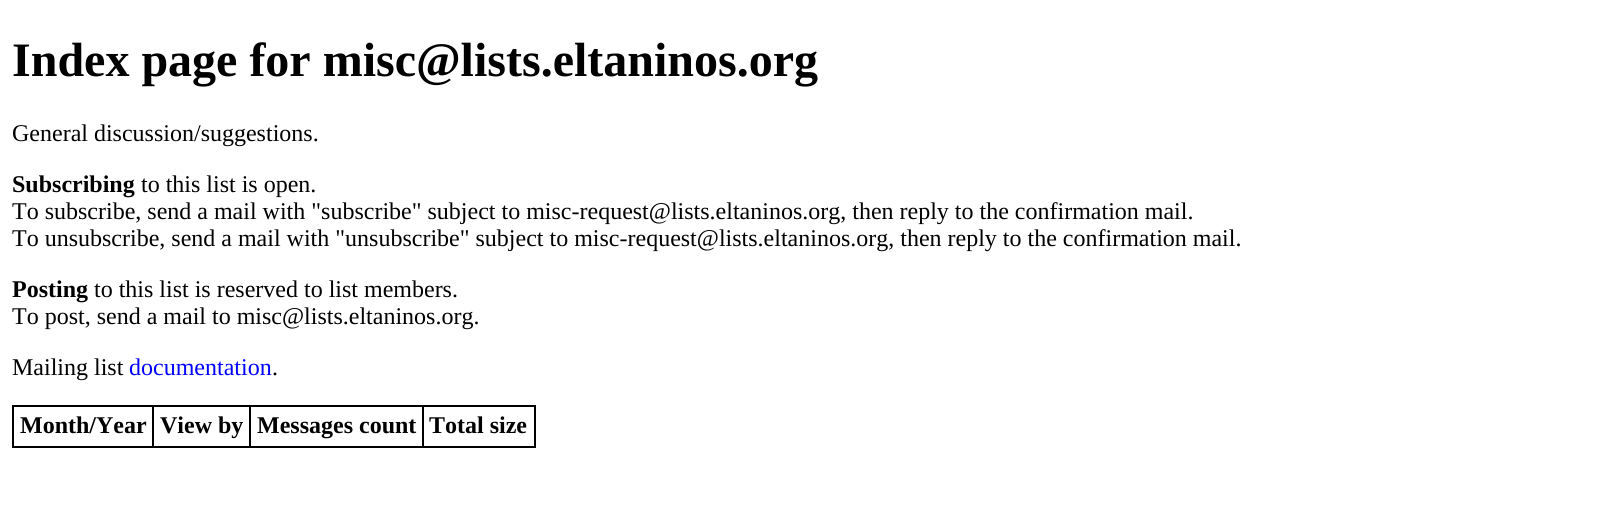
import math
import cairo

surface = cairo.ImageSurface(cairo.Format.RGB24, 1622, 506)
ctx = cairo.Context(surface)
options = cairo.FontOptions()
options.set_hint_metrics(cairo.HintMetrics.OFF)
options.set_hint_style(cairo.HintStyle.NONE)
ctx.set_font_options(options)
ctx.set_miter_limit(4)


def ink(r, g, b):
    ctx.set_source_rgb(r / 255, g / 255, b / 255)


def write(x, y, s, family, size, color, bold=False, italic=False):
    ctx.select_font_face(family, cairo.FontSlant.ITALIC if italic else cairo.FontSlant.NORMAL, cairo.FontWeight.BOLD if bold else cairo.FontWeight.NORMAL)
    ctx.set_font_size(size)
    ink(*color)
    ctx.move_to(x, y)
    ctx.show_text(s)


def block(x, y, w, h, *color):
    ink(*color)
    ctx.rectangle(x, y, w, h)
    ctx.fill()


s1 = dict(family="Liberation Serif", size=48, color=(0, 0, 0), bold=True)
s2 = dict(family="Liberation Serif", size=24, color=(0, 0, 0))
s3 = dict(family="Liberation Serif", size=24, color=(0, 0, 0), bold=True)
s4 = dict(family="Liberation Serif", size=24, color=(0, 0, 255))

ink(255, 255, 255)
ctx.paint()
write(12, 76, "Index page for misc@lists.eltaninos.org", **s1)
write(12, 141, "General discussion/suggestions.", **s2)
write(12, 192, "Subscribing", **s3)
write(141, 192, "to this list is open.", **s2)
write(12, 219, "To subscribe, send a mail with \"subscribe\" subject to misc-request@lists.eltaninos.org, then reply to the confirmation mail.", **s2)
write(12, 246, "To unsubscribe, send a mail with \"unsubscribe\" subject to misc-request@lists.eltaninos.org, then reply to the confirmation mail.", **s2)
write(12, 297, "Posting", **s3)
write(94, 297, "to this list is reserved to list members.", **s2)
write(12, 324, "To post, send a mail to misc@lists.eltaninos.org.", **s2)
write(12, 375, "Mailing list", **s2)
write(129, 375, "documentation", **s4)
write(272, 375, ".", **s2)
block(12, 405, 524, 2, 0, 0, 0)
block(534, 405, 2, 42, 0, 0, 0)
block(12, 446, 524, 2, 0, 0, 0)
block(12, 405, 2, 42, 0, 0, 0)
write(20, 433, "Month/Year", **s3)
block(152, 405, 2, 42, 0, 0, 0)
write(160, 433, "View by", **s3)
block(249, 405, 2, 42, 0, 0, 0)
write(257, 433, "Messages count", **s3)
block(422, 405, 2, 42, 0, 0, 0)
write(429, 433, "Total size", **s3)
surface.write_to_png("screenshot.png")
